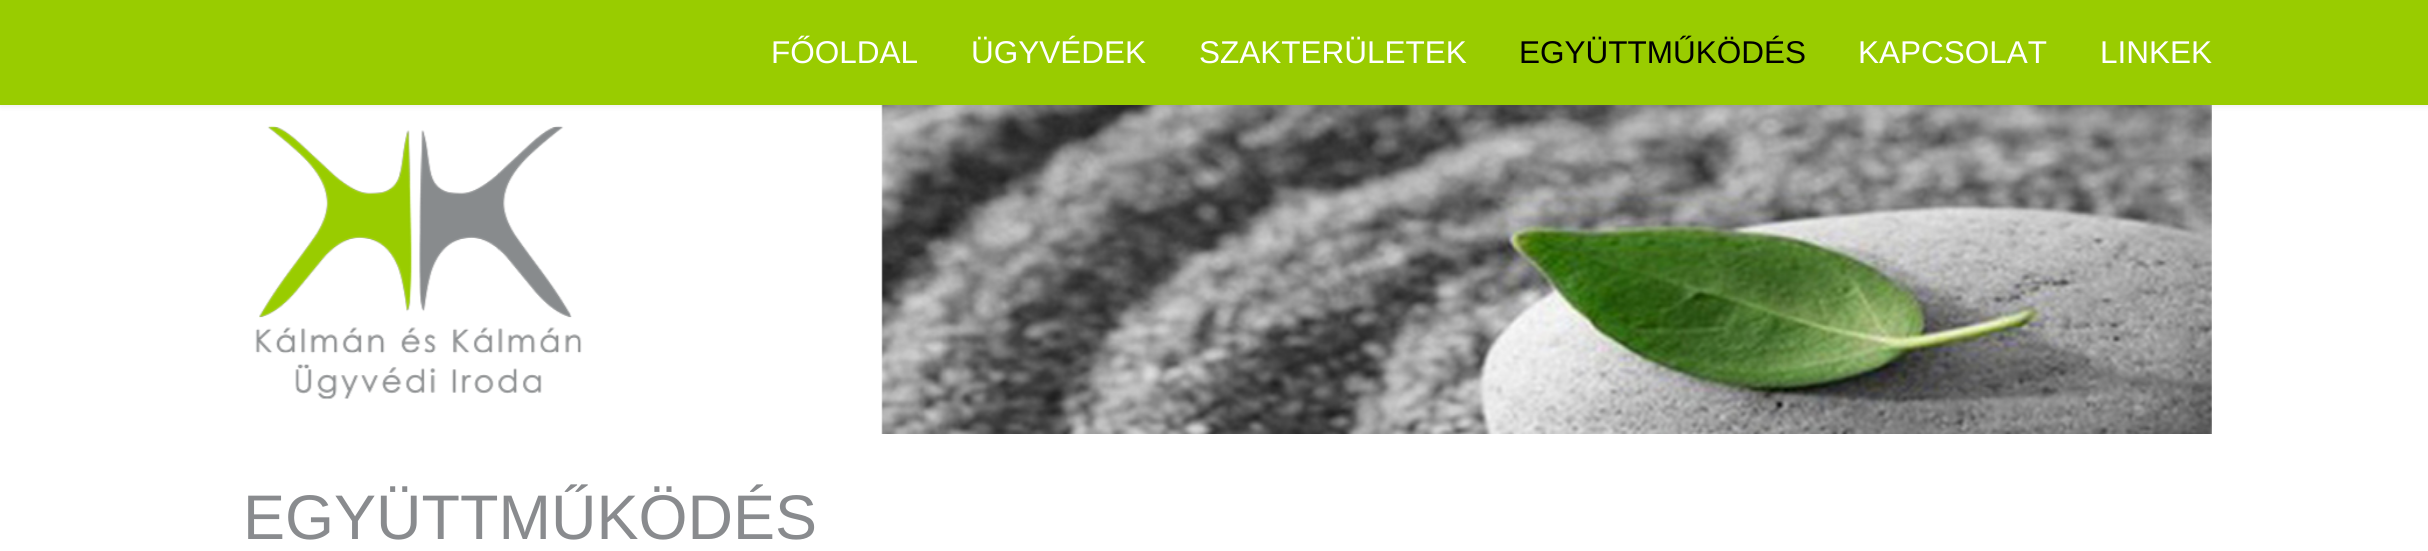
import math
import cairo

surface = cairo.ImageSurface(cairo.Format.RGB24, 2428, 551)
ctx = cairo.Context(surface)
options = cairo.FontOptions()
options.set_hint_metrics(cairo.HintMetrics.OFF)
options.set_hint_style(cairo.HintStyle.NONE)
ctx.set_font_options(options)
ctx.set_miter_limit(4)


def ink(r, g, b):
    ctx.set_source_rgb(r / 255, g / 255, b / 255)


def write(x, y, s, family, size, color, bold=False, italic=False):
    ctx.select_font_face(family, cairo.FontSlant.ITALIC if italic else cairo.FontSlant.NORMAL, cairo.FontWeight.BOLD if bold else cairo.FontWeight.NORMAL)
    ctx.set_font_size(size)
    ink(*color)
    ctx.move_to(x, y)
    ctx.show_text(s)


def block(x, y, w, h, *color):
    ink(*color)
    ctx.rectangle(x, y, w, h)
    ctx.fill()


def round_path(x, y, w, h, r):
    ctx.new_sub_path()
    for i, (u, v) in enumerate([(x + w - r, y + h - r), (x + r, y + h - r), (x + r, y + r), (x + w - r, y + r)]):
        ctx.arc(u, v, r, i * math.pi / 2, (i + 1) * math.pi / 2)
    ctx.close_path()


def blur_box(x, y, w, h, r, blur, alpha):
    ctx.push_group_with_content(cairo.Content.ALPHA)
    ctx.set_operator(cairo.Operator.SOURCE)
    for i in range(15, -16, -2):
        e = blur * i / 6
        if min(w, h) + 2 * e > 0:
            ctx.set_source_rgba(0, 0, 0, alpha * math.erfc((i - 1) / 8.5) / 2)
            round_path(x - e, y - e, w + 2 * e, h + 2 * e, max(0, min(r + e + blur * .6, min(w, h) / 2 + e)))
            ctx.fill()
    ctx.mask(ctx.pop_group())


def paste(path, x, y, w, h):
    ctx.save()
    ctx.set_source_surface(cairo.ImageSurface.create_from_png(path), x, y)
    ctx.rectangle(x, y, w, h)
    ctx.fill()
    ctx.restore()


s1 = dict(family="Liberation Sans", size=31.5, color=(255, 255, 255))
s2 = dict(family="Liberation Sans", size=31.5, color=(0, 0, 0))
s3 = dict(family="Liberation Sans", size=63, color=(137, 139, 142))

ink(255, 255, 255)
ctx.paint()
paste("pic2.png", 881, 105, 1331, 329)
ink(0, 0, 0)
blur_box(0, 0, 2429, 105, 0, 3.5, 0.1)
block(0, 0, 2428, 105, 153, 204, 0)
write(771, 63, "FŐOLDAL", **s1)
write(971, 63, "ÜGYVÉDEK", **s1)
write(1199, 63, "SZAKTERÜLETEK", **s1)
write(1519, 63, "EGYÜTTMŰKÖDÉS", **s2)
write(1858, 63, "KAPCSOLAT", **s1)
write(2100, 63, "LINKEK", **s1)
paste("pic1.png", 255, 125, 327, 275)
write(243, 539, "EGYÜTTMŰKÖDÉS", **s3)
surface.write_to_png("screenshot.png")
